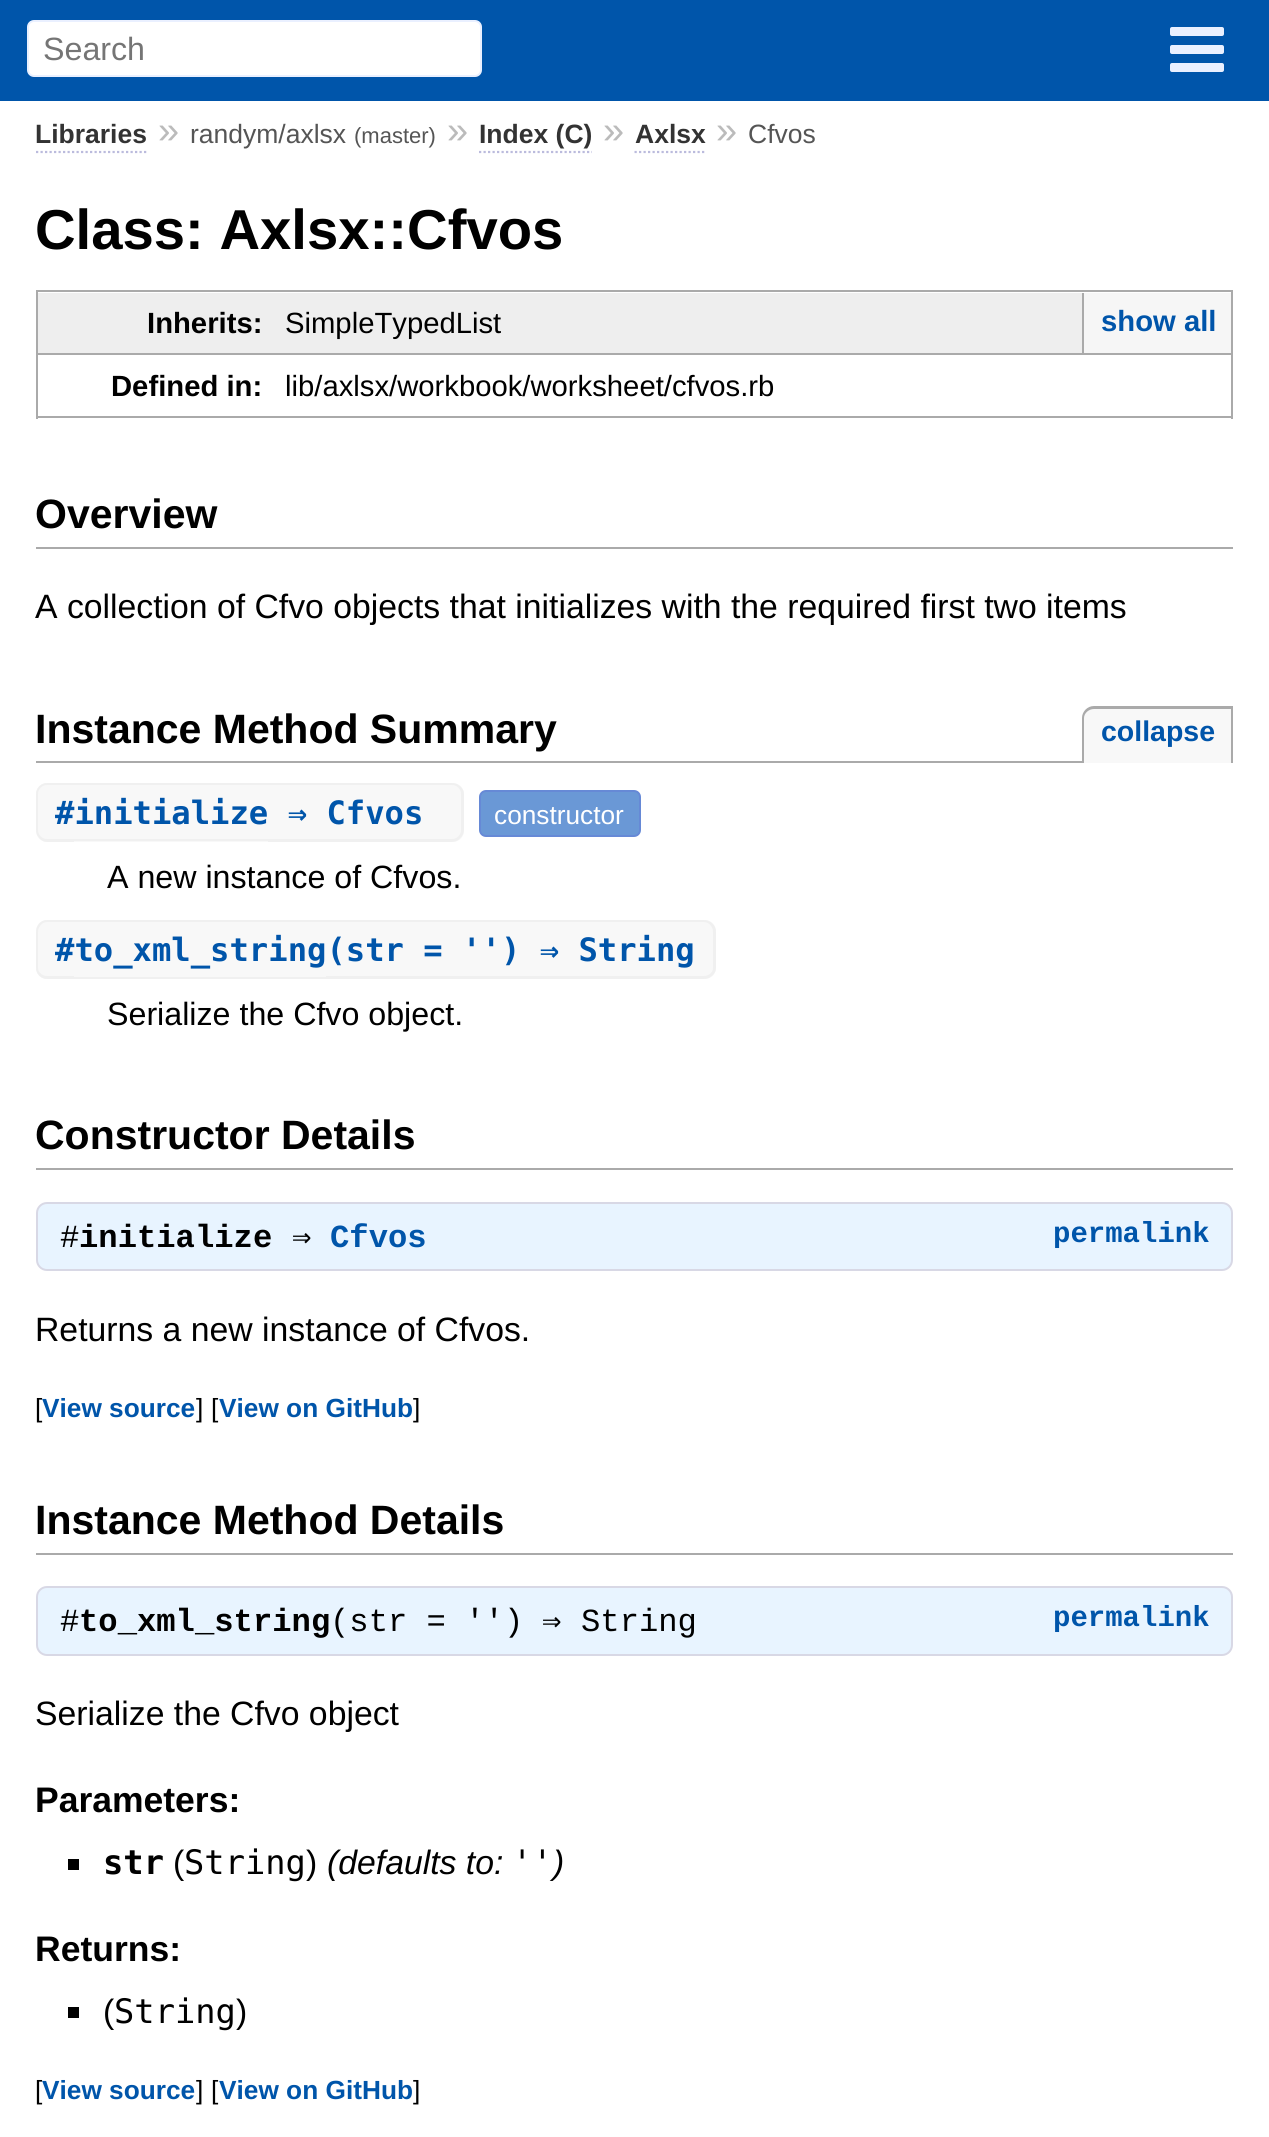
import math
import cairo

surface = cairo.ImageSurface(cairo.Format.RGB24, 1269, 2137)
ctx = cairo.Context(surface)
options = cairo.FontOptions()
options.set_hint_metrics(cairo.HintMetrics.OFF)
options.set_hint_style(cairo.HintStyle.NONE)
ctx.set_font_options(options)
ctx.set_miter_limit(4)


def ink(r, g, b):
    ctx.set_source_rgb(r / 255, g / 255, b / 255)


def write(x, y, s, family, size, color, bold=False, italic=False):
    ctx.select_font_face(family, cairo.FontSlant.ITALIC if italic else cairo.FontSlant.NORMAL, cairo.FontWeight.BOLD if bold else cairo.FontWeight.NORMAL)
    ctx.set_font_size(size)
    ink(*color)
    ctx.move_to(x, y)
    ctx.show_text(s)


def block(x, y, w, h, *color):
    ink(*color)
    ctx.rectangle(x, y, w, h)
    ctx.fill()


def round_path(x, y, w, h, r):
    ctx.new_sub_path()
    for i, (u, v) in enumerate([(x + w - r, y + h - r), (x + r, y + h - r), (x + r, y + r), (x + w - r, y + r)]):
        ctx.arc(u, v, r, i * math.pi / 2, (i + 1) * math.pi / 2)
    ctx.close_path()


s1 = dict(family="Liberation Sans", size=32.2, color=(117, 117, 117))
s2 = dict(family="Liberation Sans", size=26.5, color=(51, 51, 51), bold=True)
s3 = dict(family="Liberation Sans", size=38, color=(187, 187, 187))
s4 = dict(family="Liberation Sans", size=26.5, color=(85, 85, 85))
s5 = dict(family="Liberation Sans", size=22, color=(85, 85, 85))
s6 = dict(family="Liberation Sans", size=56.25, color=(0, 0, 0), bold=True)
s7 = dict(family="Liberation Sans", size=29.25, color=(0, 0, 0), bold=True)
s8 = dict(family="Liberation Sans", size=29.25, color=(0, 0, 0))
s9 = dict(family="Liberation Sans", size=29.25, color=(0, 85, 170), bold=True)
s10 = dict(family="Liberation Sans", size=41, color=(0, 0, 0), bold=True)
s11 = dict(family="Liberation Sans", size=33.75, color=(0, 0, 0))
s12 = dict(family="Liberation Sans", size=28.5, color=(0, 85, 170), bold=True)
s13 = dict(family="DejaVu Sans Mono", size=32.2, color=(0, 85, 170), bold=True)
s14 = dict(family="Liberation Sans", size=26.25, color=(255, 255, 255))
s15 = dict(family="Liberation Sans", size=32.2, color=(0, 0, 0))
s16 = dict(family="Liberation Mono", size=32.2, color=(0, 0, 0))
s17 = dict(family="Liberation Mono", size=32.2, color=(0, 0, 0), bold=True)
s18 = dict(family="DejaVu Sans Mono", size=32.2, color=(0, 0, 0))
s19 = dict(family="Liberation Mono", size=32.2, color=(0, 85, 170), bold=True)
s20 = dict(family="Liberation Mono", size=29, color=(0, 85, 170), bold=True)
s21 = dict(family="Liberation Sans", size=26.25, color=(0, 0, 0))
s22 = dict(family="Liberation Sans", size=26.25, color=(0, 85, 170), bold=True)
s23 = dict(family="Liberation Sans", size=35.5, color=(0, 0, 0), bold=True)
s24 = dict(family="DejaVu Sans Mono", size=33.75, color=(0, 0, 0), bold=True)
s25 = dict(family="DejaVu Sans Mono", size=33.75, color=(0, 0, 0))
s26 = dict(family="Liberation Sans", size=33.75, color=(0, 0, 0), italic=True)
s27 = dict(family="DejaVu Sans Mono", size=33.75, color=(0, 0, 0), italic=True)

ink(255, 255, 255)
ctx.paint()
block(0, 0, 1269, 101, 0, 85, 170)
ink(255, 255, 255)
round_path(28, 21, 453, 55, 6)
ctx.fill_preserve()
ink(234, 240, 255)
ctx.stroke()
write(43, 60, "Search", **s1)
ink(234, 240, 255)
round_path(1170, 27, 54, 9, 2)
ctx.fill()
round_path(1170, 45, 54, 9, 2)
ctx.fill()
round_path(1170, 63, 54, 9, 2)
ctx.fill()
write(35, 143, "Libraries", **s2)
ctx.new_path()
ctx.move_to(36, 152)
ctx.line_to(148.5, 152)
ink(187, 187, 221)
ctx.set_line_width(2.2)
ctx.set_dash([2.25, 2.25])
ctx.stroke()
write(158, 143, "»", **s3)
write(190, 143, "randym/axlsx", **s4)
write(354, 143, "(master)", **s5)
write(447, 143, "»", **s3)
write(479, 143, "Index (C)", **s2)
ctx.new_path()
ctx.move_to(479, 152)
ctx.line_to(592, 152)
ink(187, 187, 221)
ctx.stroke()
write(603, 143, "»", **s3)
write(635, 143, "Axlsx", **s2)
ctx.new_path()
ctx.move_to(634.5, 152)
ctx.line_to(706.5, 152)
ink(187, 187, 221)
ctx.stroke()
write(716, 143, "»", **s3)
write(748, 143, "Cfvos", **s4)
write(35, 249, "Class: Axlsx::Cfvos", **s6)
block(38, 293, 1044, 60, 238, 238, 238)
block(36, 290, 1197, 2, 170, 170, 170)
block(36, 290, 2, 63, 170, 170, 170)
write(147, 333, "Inherits:", **s7)
block(36, 353, 1197, 2, 170, 170, 170)
block(1231, 290, 2, 129, 170, 170, 170)
write(285, 333, "SimpleTypedList", **s8)
block(1084, 293, 147, 60, 246, 246, 246)
block(1082, 293, 2, 60, 170, 170, 170)
write(1101, 331, "show all", **s9)
block(36, 416, 250, 2, 170, 170, 170)
block(36, 353, 2, 66, 170, 170, 170)
write(111, 396, "Defined in:", **s7)
block(286, 416, 947, 2, 170, 170, 170)
write(285, 396, "lib/axlsx/workbook/worksheet/cfvos.rb", **s8)
block(36, 547, 1197, 2, 170, 170, 170)
write(35, 528, "Overview", **s10)
write(35, 618, "A collection of Cfvo objects that initializes with the required first two items", **s11)
block(36, 761, 1046, 2, 170, 170, 170)
write(35, 743, "Instance Method Summary", **s10)
ink(248, 248, 248)
ctx.new_path()
ctx.move_to(1093, 707)
ctx.line_to(1233, 707)
ctx.line_to(1233, 763)
ctx.line_to(1082, 763)
ctx.line_to(1082, 718)
ctx.curve_to(1082, 712, 1087, 707, 1093, 707)
ctx.close_path()
ctx.fill()
ink(170, 170, 170)
ctx.set_fill_rule(cairo.FillRule.EVEN_ODD)
ctx.new_path()
ctx.move_to(1094, 706)
ctx.line_to(1233, 706)
ctx.line_to(1233, 763)
ctx.line_to(1082, 763)
ctx.line_to(1082, 718)
ctx.curve_to(1082, 712, 1087, 706, 1094, 706)
ctx.close_path()
ctx.move_to(1094, 709)
ctx.line_to(1231, 709)
ctx.line_to(1231, 763)
ctx.line_to(1084, 763)
ctx.line_to(1084, 718)
ctx.curve_to(1084, 713, 1089, 709, 1094, 709)
ctx.close_path()
ctx.fill()
write(1101, 741, "collapse", **s12)
ink(248, 248, 248)
ctx.new_path()
ctx.move_to(47, 783)
ctx.line_to(74, 783)
ctx.line_to(74, 842)
ctx.line_to(47, 842)
ctx.curve_to(41, 842, 36, 837, 36, 831)
ctx.line_to(36, 794)
ctx.curve_to(36, 788, 41, 783, 47, 783)
ctx.close_path()
ctx.fill()
ink(240, 240, 240)
ctx.new_path()
ctx.move_to(47, 783)
ctx.line_to(74, 783)
ctx.line_to(74, 842)
ctx.line_to(47, 842)
ctx.curve_to(41, 842, 36, 836, 36, 830)
ctx.line_to(36, 794)
ctx.curve_to(36, 788, 41, 783, 47, 783)
ctx.close_path()
ctx.move_to(47, 785)
ctx.line_to(74, 785)
ctx.line_to(74, 839)
ctx.line_to(47, 839)
ctx.curve_to(42, 839, 38, 835, 38, 830)
ctx.line_to(38, 794)
ctx.curve_to(38, 789, 42, 785, 47, 785)
ctx.close_path()
ctx.fill()
block(74, 785, 194, 57, 248, 248, 248)
ctx.new_path()
ctx.move_to(268, 783)
ctx.line_to(453, 783)
ctx.curve_to(459, 783, 464, 788, 464, 794)
ctx.line_to(464, 831)
ctx.curve_to(464, 837, 459, 842, 453, 842)
ctx.line_to(268, 842)
ctx.close_path()
ctx.fill()
ink(240, 240, 240)
ctx.new_path()
ctx.move_to(268, 783)
ctx.line_to(452, 783)
ctx.curve_to(458, 783, 464, 788, 464, 794)
ctx.line_to(464, 830)
ctx.curve_to(464, 836, 458, 842, 452, 842)
ctx.line_to(268, 842)
ctx.close_path()
ctx.move_to(268, 785)
ctx.line_to(452, 785)
ctx.curve_to(457, 785, 461, 789, 461, 794)
ctx.line_to(461, 830)
ctx.curve_to(461, 835, 457, 839, 452, 839)
ctx.line_to(268, 839)
ctx.close_path()
ctx.fill()
write(55, 824, "#initialize ⇒ Cfvos", **s13)
block(74, 783, 194, 2, 240, 240, 240)
block(74, 839, 194, 2, 240, 240, 240)
ink(106, 152, 214)
round_path(480, 791, 160, 45, 6)
ctx.fill_preserve()
ink(102, 137, 214)
ctx.set_line_width(2)
ctx.set_dash([])
ctx.stroke()
write(494, 824, "constructor", **s14)
write(107, 888, "A new instance of Cfvos.", **s15)
ink(248, 248, 248)
ctx.new_path()
ctx.move_to(47, 920)
ctx.line_to(74, 920)
ctx.line_to(74, 979)
ctx.line_to(47, 979)
ctx.curve_to(41, 979, 36, 974, 36, 968)
ctx.line_to(36, 931)
ctx.curve_to(36, 925, 41, 920, 47, 920)
ctx.close_path()
ctx.fill()
ink(240, 240, 240)
ctx.new_path()
ctx.move_to(47, 920)
ctx.line_to(74, 920)
ctx.line_to(74, 979)
ctx.line_to(47, 979)
ctx.curve_to(41, 979, 36, 974, 36, 968)
ctx.line_to(36, 932)
ctx.curve_to(36, 925, 41, 920, 47, 920)
ctx.close_path()
ctx.move_to(47, 922)
ctx.line_to(74, 922)
ctx.line_to(74, 976)
ctx.line_to(47, 976)
ctx.curve_to(42, 976, 38, 972, 38, 968)
ctx.line_to(38, 932)
ctx.curve_to(38, 927, 42, 922, 47, 922)
ctx.close_path()
ctx.fill()
block(74, 922, 252, 55, 248, 248, 248)
ctx.new_path()
ctx.move_to(326, 920)
ctx.line_to(705, 920)
ctx.curve_to(711, 920, 716, 925, 716, 931)
ctx.line_to(716, 968)
ctx.curve_to(716, 974, 711, 979, 705, 979)
ctx.line_to(326, 979)
ctx.close_path()
ctx.fill()
ink(240, 240, 240)
ctx.new_path()
ctx.move_to(326, 920)
ctx.line_to(704, 920)
ctx.curve_to(710, 920, 716, 925, 716, 932)
ctx.line_to(716, 968)
ctx.curve_to(716, 974, 710, 979, 704, 979)
ctx.line_to(326, 979)
ctx.close_path()
ctx.move_to(326, 922)
ctx.line_to(704, 922)
ctx.curve_to(709, 922, 713, 927, 713, 932)
ctx.line_to(713, 968)
ctx.curve_to(713, 972, 709, 976, 704, 976)
ctx.line_to(326, 976)
ctx.close_path()
ctx.fill()
write(55, 961, "#to_xml_string(str = '') ⇒ String", **s13)
block(74, 920, 252, 2, 240, 240, 240)
block(74, 977, 252, 2, 240, 240, 240)
write(107, 1025, "Serialize the Cfvo object.", **s15)
block(36, 1168, 1197, 2, 170, 170, 170)
write(35, 1149, "Constructor Details", **s10)
ink(232, 244, 255)
round_path(37, 1203, 1195, 67, 10)
ctx.fill_preserve()
ink(216, 216, 229)
ctx.stroke()
write(60, 1247, "#", **s16)
write(79, 1247, "initialize", **s17)
write(292, 1247, "⇒", **s18)
write(330, 1247, "Cfvos", **s19)
write(1053, 1242, "permalink", **s20)
write(35, 1341, "Returns a new instance of Cfvos.", **s11)
write(35, 1417, "[", **s21)
write(42, 1417, "View source", **s22)
write(196, 1417, "]", **s21)
write(211, 1417, "[", **s21)
write(219, 1417, "View on GitHub", **s22)
write(413, 1417, "]", **s21)
block(36, 1553, 1197, 2, 170, 170, 170)
write(35, 1534, "Instance Method Details", **s10)
ink(232, 244, 255)
round_path(37, 1587, 1195, 68, 10)
ctx.fill_preserve()
ink(216, 216, 229)
ctx.stroke()
write(60, 1631, "#", **s16)
write(79, 1631, "to_xml_string", **s17)
write(330, 1631, "(str = '')", **s16)
write(542, 1631, "⇒", **s18)
write(581, 1631, "String", **s16)
write(1053, 1626, "permalink", **s20)
write(35, 1725, "Serialize the Cfvo object", **s11)
write(35, 1812, "Parameters:", **s23)
block(68, 1859, 11, 11, 0, 0, 0)
write(103, 1874, "str", **s24)
write(173, 1874, "(", **s11)
write(184, 1874, "String", **s25)
write(306, 1874, ")", **s11)
write(327, 1874, "(defaults to:", **s26)
write(512, 1874, "''", **s27)
write(553, 1874, ")", **s26)
write(35, 1961, "Returns:", **s23)
block(68, 2007, 11, 11, 0, 0, 0)
write(103, 2023, "(", **s11)
write(114, 2023, "String", **s25)
write(236, 2023, ")", **s11)
write(35, 2099, "[", **s21)
write(42, 2099, "View source", **s22)
write(196, 2099, "]", **s21)
write(211, 2099, "[", **s21)
write(219, 2099, "View on GitHub", **s22)
write(413, 2099, "]", **s21)
surface.write_to_png("screenshot.png")
